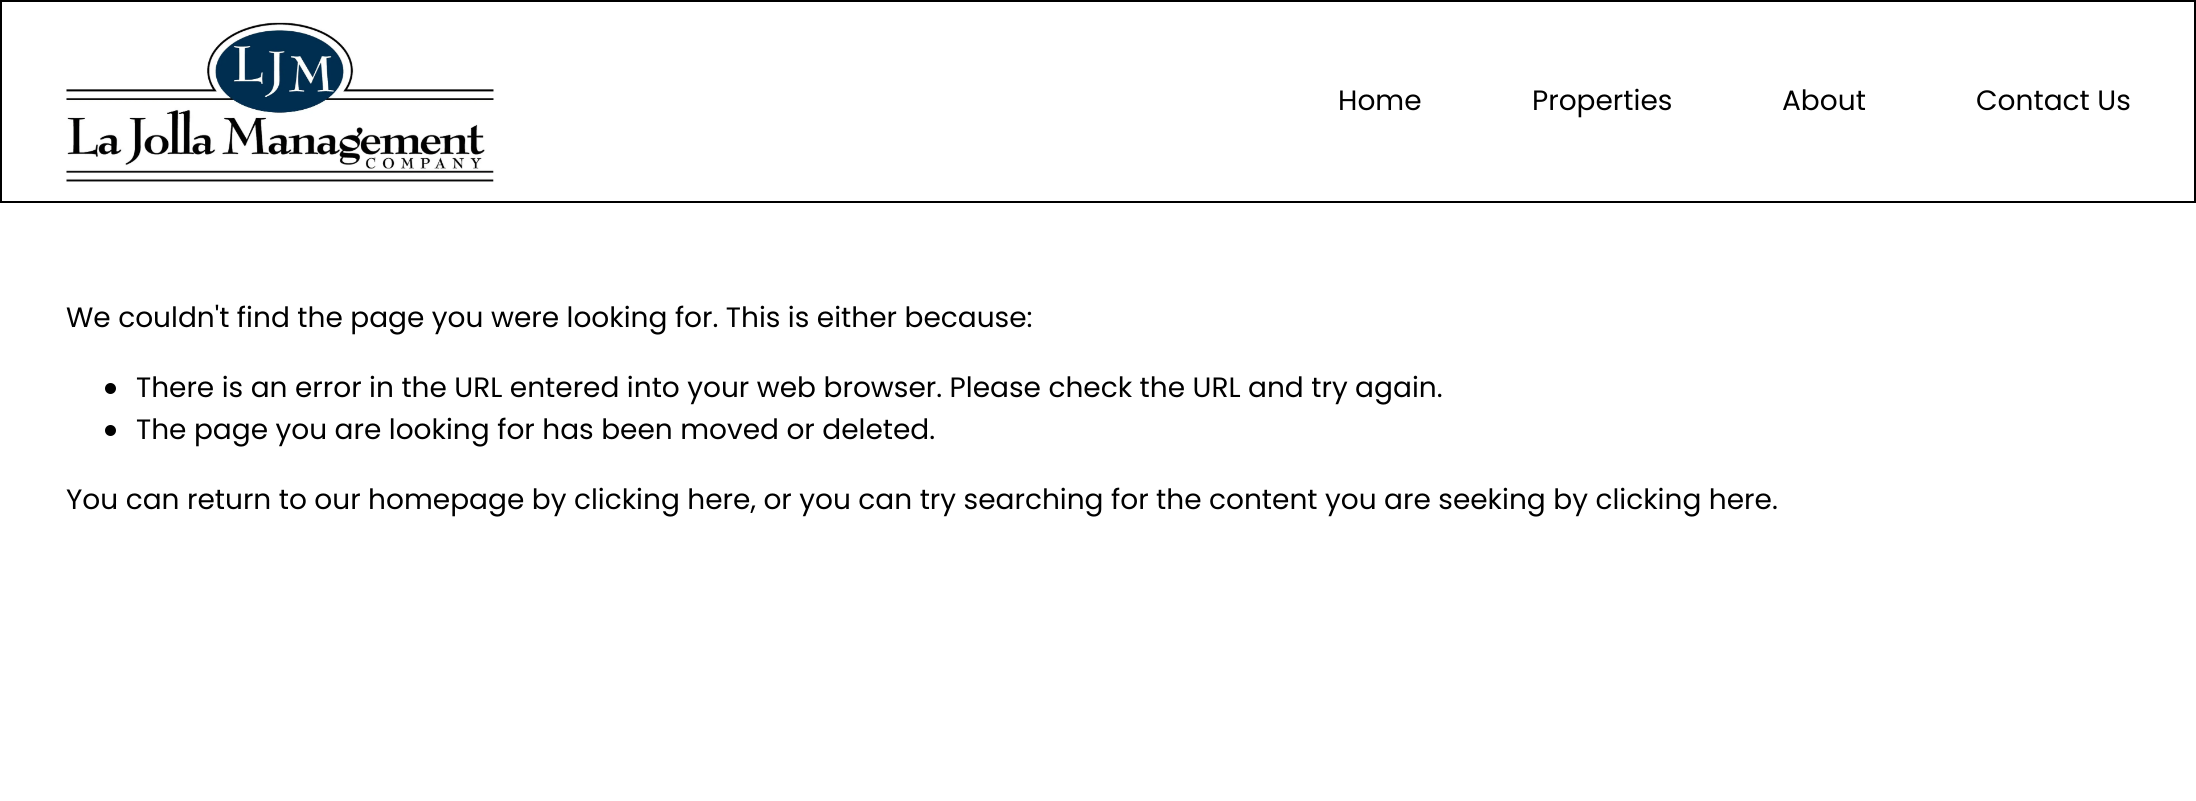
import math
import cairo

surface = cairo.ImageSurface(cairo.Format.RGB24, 2196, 801)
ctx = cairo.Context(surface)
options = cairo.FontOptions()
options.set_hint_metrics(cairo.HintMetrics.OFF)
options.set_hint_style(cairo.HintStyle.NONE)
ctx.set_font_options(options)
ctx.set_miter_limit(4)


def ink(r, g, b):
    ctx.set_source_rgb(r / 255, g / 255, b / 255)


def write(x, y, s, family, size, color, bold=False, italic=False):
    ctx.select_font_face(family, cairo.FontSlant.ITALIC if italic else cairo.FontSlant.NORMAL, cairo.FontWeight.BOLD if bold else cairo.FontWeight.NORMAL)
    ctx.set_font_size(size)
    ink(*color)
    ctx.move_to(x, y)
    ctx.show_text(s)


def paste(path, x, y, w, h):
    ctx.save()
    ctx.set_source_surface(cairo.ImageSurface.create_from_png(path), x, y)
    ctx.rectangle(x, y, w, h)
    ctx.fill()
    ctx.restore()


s1 = dict(family="Poppins", size=28, color=(0, 0, 0))

ink(255, 255, 255)
ctx.paint()
ctx.rectangle(1, 1, 2194, 201)
ink(0, 0, 0)
ctx.stroke()
paste("pic1.png", 66, 22, 428, 160)
write(1338, 110, "Home", **s1)
write(1532, 110, "Properties", **s1)
write(1782, 110, "About", **s1)
write(1976, 110, "Contact Us", **s1)
write(66, 327, "We couldn't find the page you were looking for. This is either because:", **s1)
ctx.new_path()
ctx.arc(110.5, 388.5, 5.5, 0, 2 * math.pi)
ctx.fill()
write(136, 397, "There is an error in the URL entered into your web browser. Please check the URL and try again.", **s1)
ctx.new_path()
ctx.arc(110.5, 430.5, 5.5, 0, 2 * math.pi)
ctx.fill()
write(136, 439, "The page you are looking for has been moved or deleted.", **s1)
write(66, 509, "You can return to our homepage by clicking here, or you can try searching for the content you are seeking by clicking here.", **s1)
surface.write_to_png("screenshot.png")
